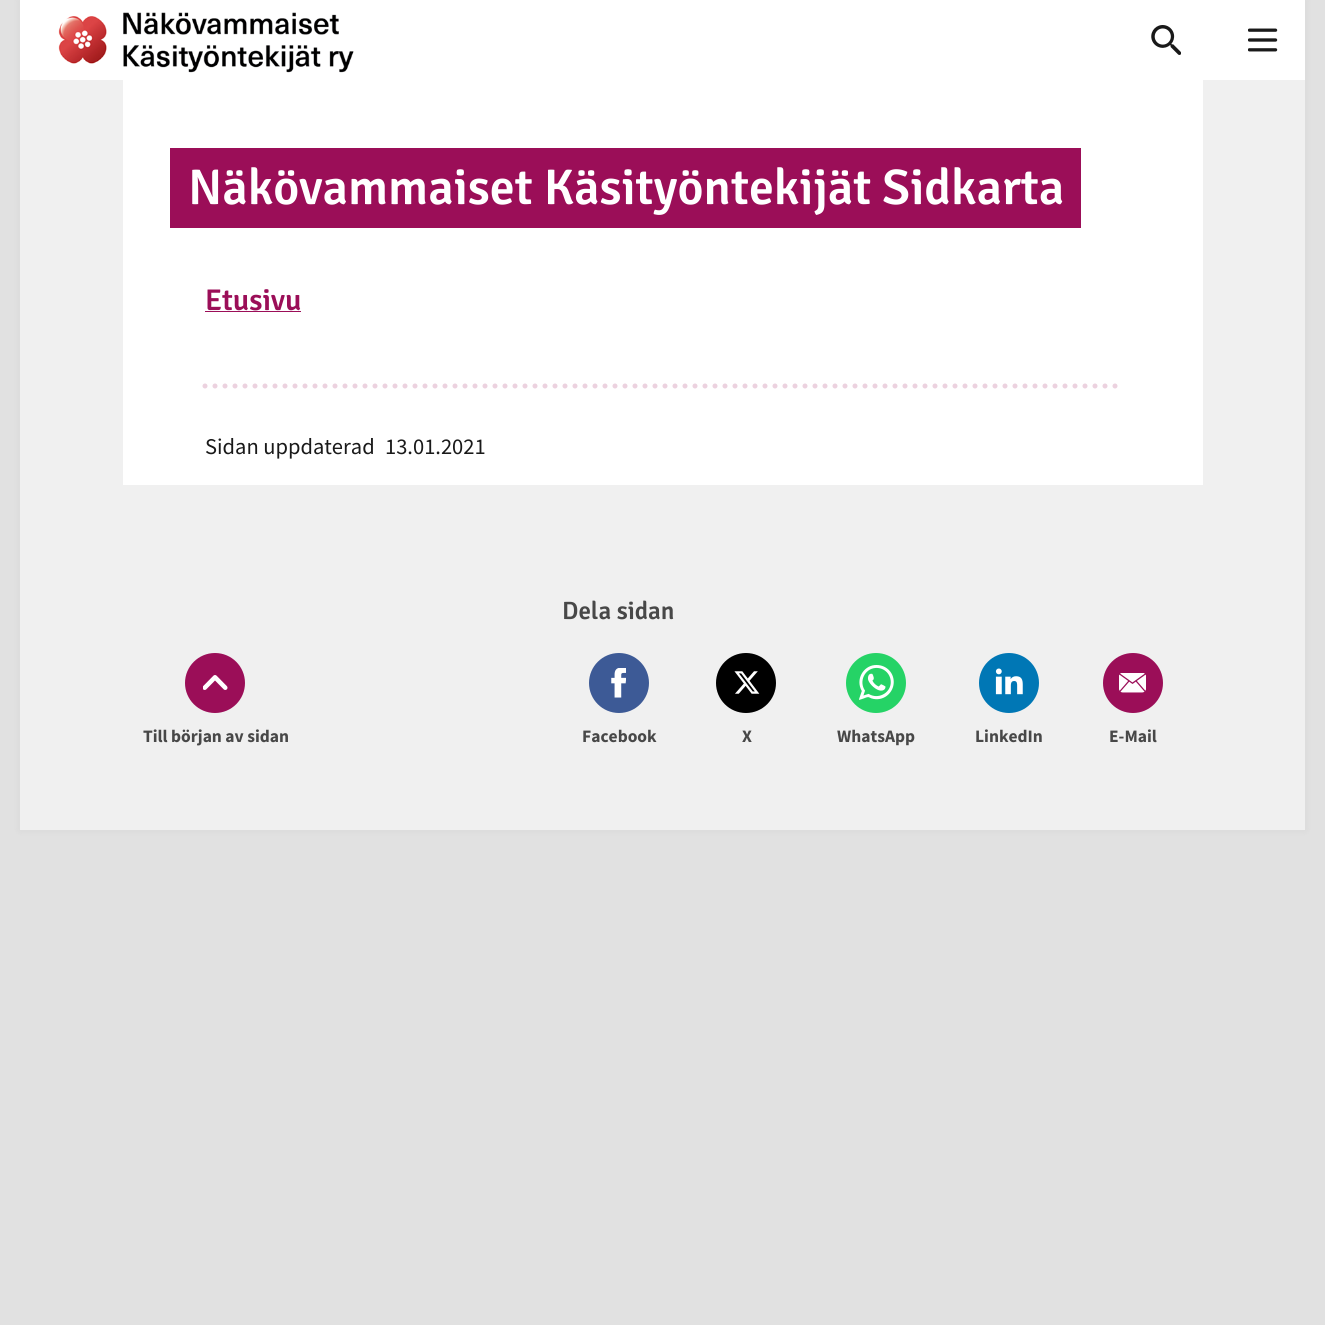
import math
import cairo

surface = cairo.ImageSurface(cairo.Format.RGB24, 1325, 1325)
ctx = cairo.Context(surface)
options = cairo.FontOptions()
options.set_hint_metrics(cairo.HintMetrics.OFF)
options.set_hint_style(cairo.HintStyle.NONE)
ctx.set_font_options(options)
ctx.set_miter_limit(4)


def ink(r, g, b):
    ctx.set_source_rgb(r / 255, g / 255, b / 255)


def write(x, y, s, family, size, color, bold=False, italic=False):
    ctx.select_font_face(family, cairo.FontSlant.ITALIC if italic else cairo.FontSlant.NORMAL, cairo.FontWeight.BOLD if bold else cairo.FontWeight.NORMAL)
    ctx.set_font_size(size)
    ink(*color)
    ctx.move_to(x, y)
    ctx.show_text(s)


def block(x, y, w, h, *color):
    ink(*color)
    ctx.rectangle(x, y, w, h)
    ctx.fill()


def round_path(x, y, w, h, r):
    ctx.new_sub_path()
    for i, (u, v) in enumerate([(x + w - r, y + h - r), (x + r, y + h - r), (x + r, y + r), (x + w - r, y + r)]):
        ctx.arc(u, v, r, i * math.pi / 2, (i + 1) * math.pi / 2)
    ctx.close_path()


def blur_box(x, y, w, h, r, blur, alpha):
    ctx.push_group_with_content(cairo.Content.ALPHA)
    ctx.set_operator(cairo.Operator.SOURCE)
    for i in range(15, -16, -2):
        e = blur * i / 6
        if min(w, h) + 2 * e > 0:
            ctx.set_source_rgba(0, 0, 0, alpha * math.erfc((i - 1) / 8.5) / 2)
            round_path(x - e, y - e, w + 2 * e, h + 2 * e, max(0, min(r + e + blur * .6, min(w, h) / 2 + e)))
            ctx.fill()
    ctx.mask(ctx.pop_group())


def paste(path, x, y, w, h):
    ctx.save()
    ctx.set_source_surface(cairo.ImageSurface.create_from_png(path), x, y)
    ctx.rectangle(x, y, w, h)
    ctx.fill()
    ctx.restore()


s1 = dict(family="Signika Negative SemiBold", size=50, color=(255, 255, 255))
s2 = dict(family="Signika Negative SemiBold", size=30, color=(155, 14, 88))
s3 = dict(family="Source Sans Pro", size=22.5, color=(26, 26, 26))
s4 = dict(family="Source Sans Pro", size=17.5, color=(72, 72, 72), bold=True)
s5 = dict(family="Signika Negative SemiBold", size=25, color=(72, 72, 72))

ink(225, 225, 225)
ctx.paint()
ink(0, 0, 0)
blur_box(20, 0, 1285, 830, 0, 4, 0.05)
block(20, 80, 1285, 750, 240, 240, 240)
block(20, 0, 1285, 80, 255, 255, 255)
paste("pic1.png", 58, 12, 296, 61)
paste("pic2.png", 1151, 25, 30, 30)
paste("pic3.png", 1248, 28, 30, 24)
block(123, 80, 1080, 405, 255, 255, 255)
block(188, 148, 876, 80, 155, 14, 88)
write(188, 204, "Näkövammaiset Käsityöntekijät Sidkarta", **s1)
ink(155, 14, 88)
ctx.new_path()
ctx.move_to(170, 148)
ctx.line_to(170, 228)
ctx.line_to(1046, 228)
ctx.line_to(188, 228)
ctx.line_to(188, 148)
ctx.close_path()
ctx.fill()
ctx.new_path()
ctx.move_to(205, 228)
ctx.line_to(1081, 228)
ctx.line_to(1081, 148)
ctx.line_to(1064, 148)
ctx.line_to(1064, 228)
ctx.close_path()
ctx.fill()
write(205, 310, "Etusivu", **s2)
block(205, 311, 96, 1, 155, 14, 88)
ctx.new_path()
ctx.move_to(205, 386)
ctx.line_to(1120, 386)
ink(236, 210, 223)
ctx.set_line_width(5)
ctx.set_line_cap(cairo.LineCap.ROUND)
ctx.set_dash([0, 10])
ctx.stroke()
write(205, 454, "Sidan uppdaterad", **s3)
write(385, 454, "13.01.2021", **s3)
ink(155, 14, 88)
ctx.new_path()
ctx.arc(215, 683, 30, 0, 2 * math.pi)
ctx.fill()
paste("pic4.png", 203, 675, 25, 15)
write(143, 742, "Till början av sidan", **s4)
write(562, 619, "Dela sidan", **s5)
ink(61, 90, 150)
ctx.new_path()
ctx.arc(619, 683, 30, 0, 2 * math.pi)
ctx.fill()
paste("pic5.png", 611, 668, 15, 30)
write(582, 742, "Facebook", **s4)
ink(0, 0, 0)
ctx.new_path()
ctx.arc(746, 683, 30, 0, 2 * math.pi)
ctx.fill()
paste("pic6.png", 734, 671, 26, 23)
write(742, 742, "X", **s4)
ink(37, 211, 102)
ctx.new_path()
ctx.arc(876, 683, 30, 0, 2 * math.pi)
ctx.fill()
paste("pic7.png", 859, 665, 35, 35)
write(837, 742, "WhatsApp", **s4)
ink(0, 119, 181)
ctx.new_path()
ctx.arc(1009, 683, 30, 0, 2 * math.pi)
ctx.fill()
paste("pic8.png", 995, 668, 28, 27)
write(975, 742, "LinkedIn", **s4)
ink(155, 14, 88)
ctx.new_path()
ctx.arc(1133, 683, 30, 0, 2 * math.pi)
ctx.fill()
paste("pic9.png", 1119, 673, 27, 20)
write(1109, 742, "E-Mail", **s4)
surface.write_to_png("screenshot.png")
